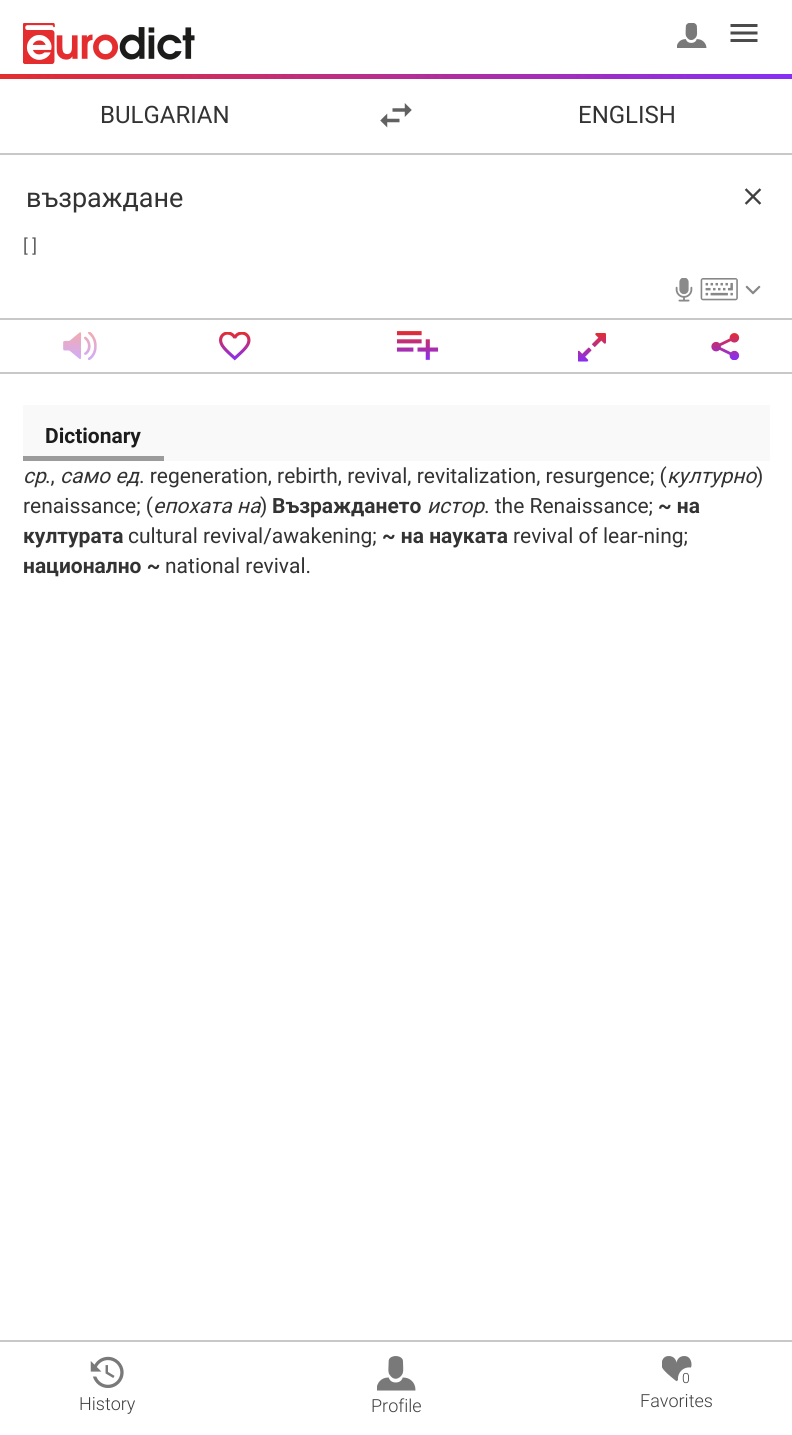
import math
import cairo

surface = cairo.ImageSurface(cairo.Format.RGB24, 792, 1435)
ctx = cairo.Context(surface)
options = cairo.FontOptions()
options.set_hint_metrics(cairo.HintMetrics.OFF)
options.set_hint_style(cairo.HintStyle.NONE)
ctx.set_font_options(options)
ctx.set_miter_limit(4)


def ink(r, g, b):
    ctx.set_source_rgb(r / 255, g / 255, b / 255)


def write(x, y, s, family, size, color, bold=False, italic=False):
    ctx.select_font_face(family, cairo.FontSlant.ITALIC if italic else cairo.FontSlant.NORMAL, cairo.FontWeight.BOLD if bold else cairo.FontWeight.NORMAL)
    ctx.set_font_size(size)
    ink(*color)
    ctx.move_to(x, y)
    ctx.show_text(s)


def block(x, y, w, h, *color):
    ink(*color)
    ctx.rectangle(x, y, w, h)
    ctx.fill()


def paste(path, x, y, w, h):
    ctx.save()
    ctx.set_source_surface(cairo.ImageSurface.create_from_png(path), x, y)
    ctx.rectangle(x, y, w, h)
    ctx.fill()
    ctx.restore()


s1 = dict(family="Roboto", size=24, color=(51, 51, 51))
s2 = dict(family="Roboto", size=27, color=(51, 51, 51))
s3 = dict(family="Roboto", size=18, color=(95, 95, 95))
s4 = dict(family="Roboto", size=21, color=(28, 28, 28), bold=True)
s5 = dict(family="Roboto", size=21, color=(51, 51, 51), italic=True)
s6 = dict(family="Roboto", size=21, color=(51, 51, 51))
s7 = dict(family="Roboto", size=21, color=(51, 51, 51), bold=True)
s8 = dict(family="Roboto Light", size=18, color=(62, 62, 62))
s9 = dict(family="Roboto Light", size=14, color=(62, 62, 62))

ink(255, 255, 255)
ctx.paint()
paste("pic1.png", 23, 23, 172, 41)
paste("pic2.png", 677, 23, 30, 25)
paste("pic3.png", 730, 24, 28, 18)
gradient = cairo.LinearGradient(0, 76, 792, 76)
gradient.add_color_stop_rgba(0, 0.894, 0.176, 0.18, 1)
gradient.add_color_stop_rgba(1, 0.525, 0.184, 0.965, 1)
ctx.set_source(gradient)
ctx.rectangle(0, 74, 792, 5)
ctx.fill()
block(0, 153, 792, 2, 200, 200, 200)
write(100, 123, "BULGARIAN", **s1)
paste("pic4.png", 380, 103, 32, 25)
write(578, 123, "ENGLISH", **s1)
block(0, 318, 792, 2, 200, 200, 200)
write(26, 207, "възраждане", **s2)
paste("pic5.png", 744, 188, 18, 17)
write(23, 252, "[ ]", **s3)
paste("pic6.png", 675, 278, 18, 24)
paste("pic7.png", 700, 278, 38, 23)
paste("pic8.png", 745, 285, 16, 10)
block(0, 372, 792, 2, 200, 200, 200)
paste("pic9.png", 63, 332, 34, 28)
paste("pic10.png", 219, 332, 32, 29)
paste("pic11.png", 396, 331, 43, 29)
paste("pic12.png", 578, 333, 28, 29)
paste("pic13.png", 711, 333, 29, 27)
block(23, 405, 747, 56, 249, 249, 249)
block(23, 456, 141, 5, 155, 155, 155)
write(45, 443, "Dictionary", **s4)
write(23, 483, "ср", **s5)
write(45, 483, ".,", **s6)
write(60, 483, "само ед", **s5)
write(139, 483, ". regeneration, rebirth, revival, revitalization, resurgence; (", **s6)
write(667, 483, "културно", **s5)
write(756, 483, ")", **s6)
write(23, 513, "renaissance; (", **s6)
write(153, 513, "епохата на", **s5)
write(260, 513, ")", **s6)
write(272, 513, "Възраждането", **s7)
write(427, 513, "истор", **s5)
write(484, 513, ". the Renaissance;", **s6)
write(658, 513, "~ на", **s7)
write(23, 543, "културата", **s7)
write(128, 543, "cultural revival/awakening;", **s6)
write(382, 543, "~ на науката", **s7)
write(513, 543, "revival of lear-ning;", **s6)
write(23, 573, "национално ~", **s7)
write(165, 573, "national revival.", **s6)
block(0, 1340, 792, 2, 200, 200, 200)
paste("pic14.png", 90, 1356, 34, 32)
write(79, 1410, "History", **s8)
paste("pic15.png", 377, 1356, 39, 35)
write(371, 1412, "Profile", **s8)
paste("pic16.png", 662, 1356, 30, 26)
write(682, 1383, "0", **s9)
write(640, 1407, "Favorites", **s8)
surface.write_to_png("screenshot.png")
